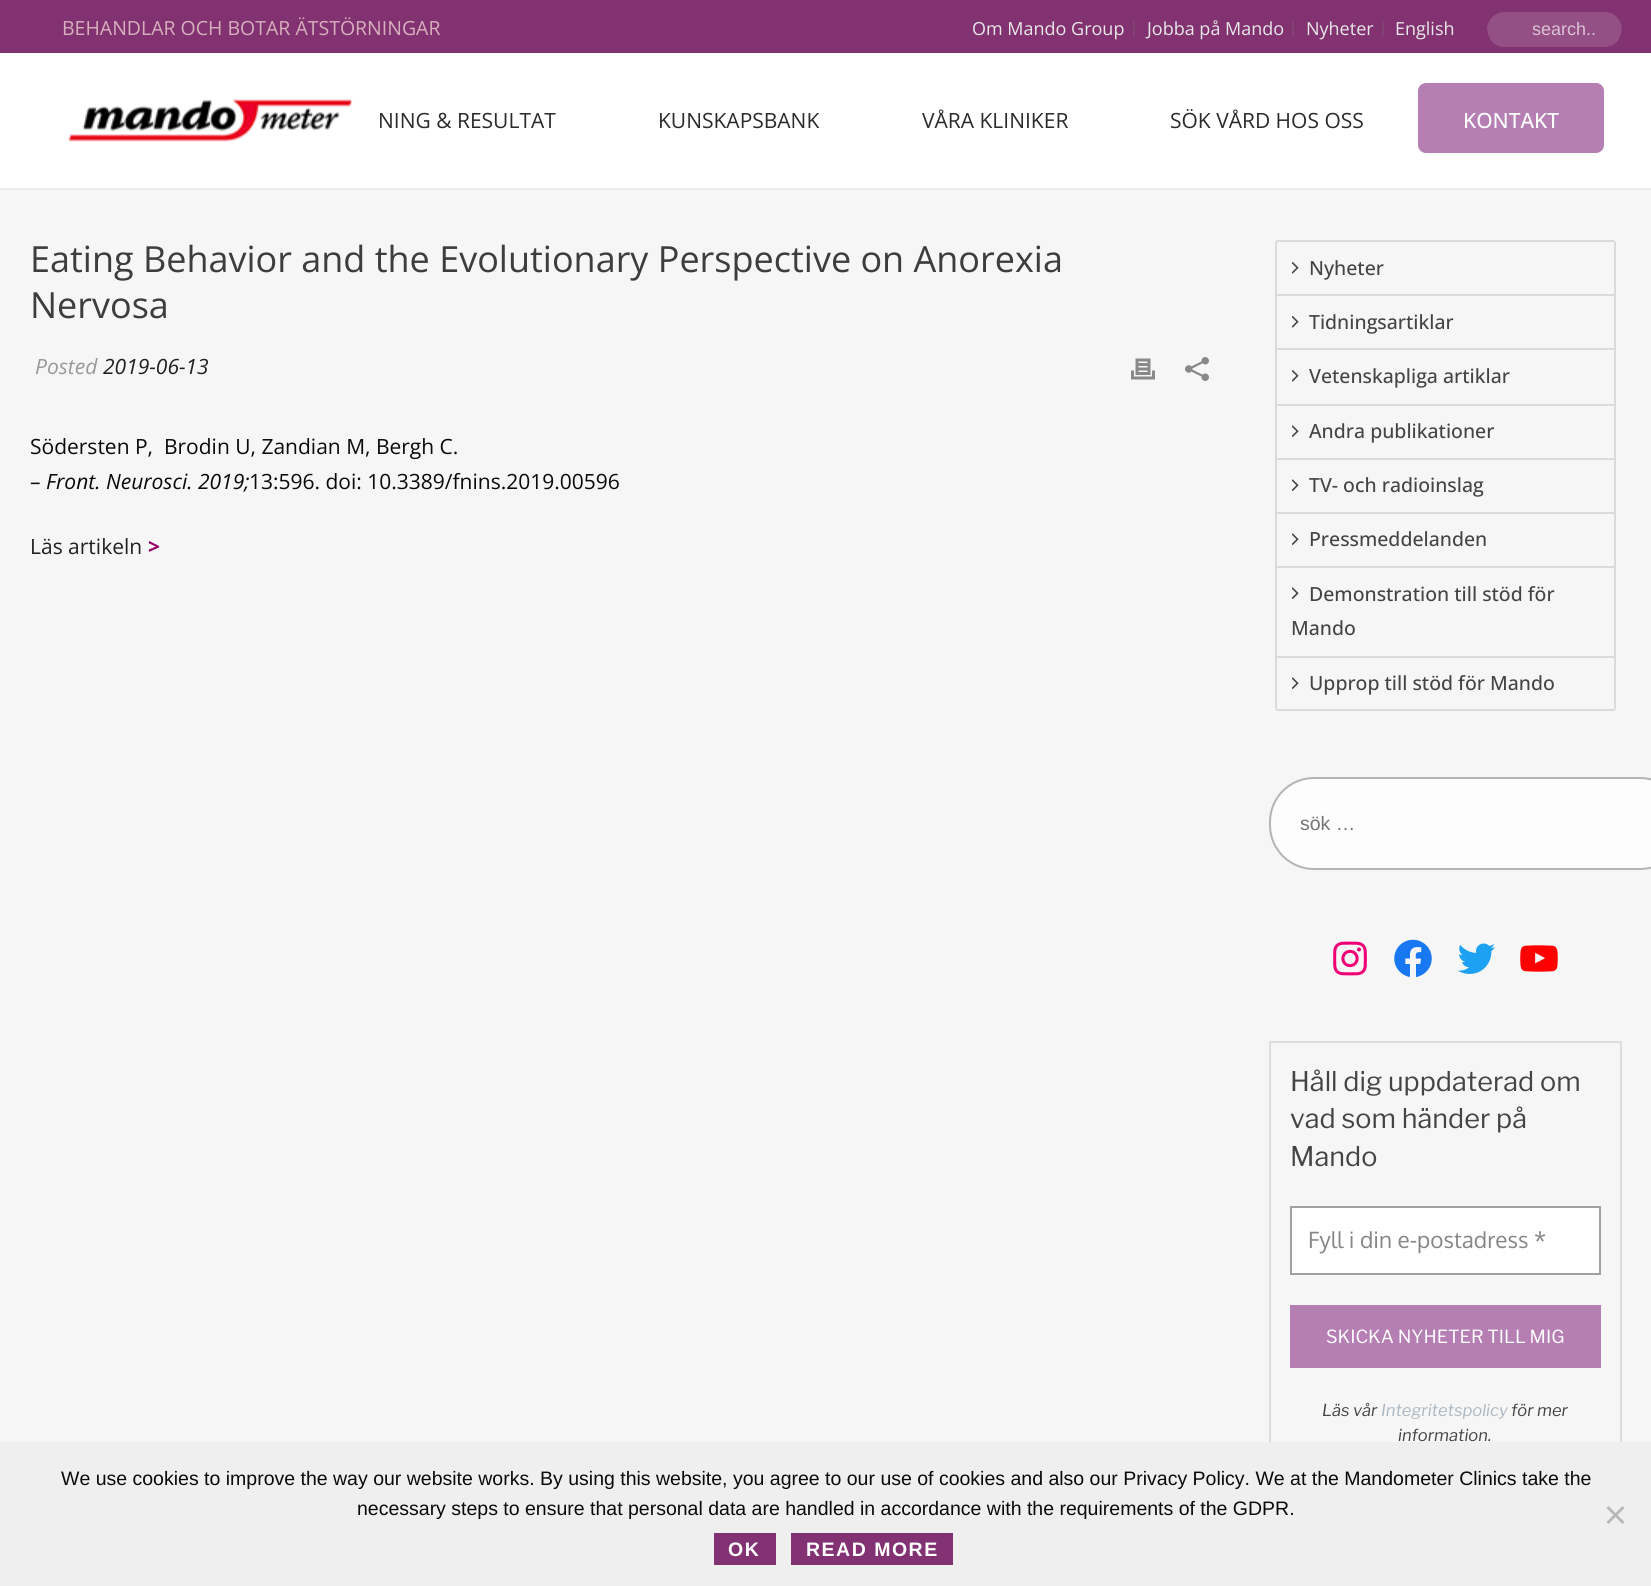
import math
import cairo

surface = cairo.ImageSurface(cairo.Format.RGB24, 1651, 1586)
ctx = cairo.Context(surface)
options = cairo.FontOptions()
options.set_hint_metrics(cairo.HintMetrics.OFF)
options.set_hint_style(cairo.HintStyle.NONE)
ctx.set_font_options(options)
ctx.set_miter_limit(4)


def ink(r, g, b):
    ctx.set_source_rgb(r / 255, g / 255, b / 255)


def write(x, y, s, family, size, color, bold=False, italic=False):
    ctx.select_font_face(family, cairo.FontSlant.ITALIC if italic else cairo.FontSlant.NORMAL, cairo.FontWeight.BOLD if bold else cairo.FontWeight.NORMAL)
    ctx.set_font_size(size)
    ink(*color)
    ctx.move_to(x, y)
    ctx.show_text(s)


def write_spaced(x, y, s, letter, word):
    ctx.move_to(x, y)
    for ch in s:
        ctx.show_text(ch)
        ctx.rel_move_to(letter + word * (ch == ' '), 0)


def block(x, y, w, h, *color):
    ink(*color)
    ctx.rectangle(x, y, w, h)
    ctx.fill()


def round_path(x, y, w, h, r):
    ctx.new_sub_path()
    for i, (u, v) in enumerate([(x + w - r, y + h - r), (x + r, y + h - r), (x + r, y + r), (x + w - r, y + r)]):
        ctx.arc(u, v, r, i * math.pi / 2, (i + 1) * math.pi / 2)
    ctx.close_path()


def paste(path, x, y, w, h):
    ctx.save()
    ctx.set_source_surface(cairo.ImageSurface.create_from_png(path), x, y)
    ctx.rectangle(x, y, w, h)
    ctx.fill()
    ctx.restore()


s1 = dict(family="Open Sans", size=19.5, color=(214, 175, 189))
s2 = dict(family="Open Sans", size=18, color=(232, 232, 232))
s3 = dict(family="Liberation Sans", size=18, color=(218, 194, 212))
s4 = dict(family="Open Sans", size=21, color=(43, 43, 43))
s5 = dict(family="Open Sans Medium", size=21, color=(255, 255, 255))
s6 = dict(family="Open Sans", size=36, color=(61, 61, 61))
s7 = dict(family="Open Sans", size=21, color=(153, 153, 153), italic=True)
s8 = dict(family="Open Sans", size=21, color=(33, 33, 33), italic=True)
s9 = dict(family="Open Sans", size=21, color=(10, 10, 10))
s10 = dict(family="Open Sans", size=21, color=(10, 10, 10), italic=True)
s11 = dict(family="Open Sans", size=21, color=(33, 33, 33))
s12 = dict(family="Open Sans", size=21, color=(153, 0, 102), bold=True)
s13 = dict(family="Open Sans Medium", size=19.5, color=(68, 68, 68))
s14 = dict(family="Liberation Sans", size=19.5, color=(117, 117, 117))
s15 = dict(family="Libre Franklin", size=27, color=(68, 68, 68))
s16 = dict(family="Oxygen", size=22.5, color=(134, 134, 134))
s17 = dict(family="Libre Franklin", size=18, color=(255, 255, 255))
s18 = dict(family="Libre Franklin", size=16.5, color=(68, 68, 68), italic=True)
s19 = dict(family="Libre Franklin", size=16.5, color=(171, 184, 195), italic=True)
s20 = dict(family="Liberation Sans", size=19.5, color=(10, 10, 10))

ink(246, 246, 246)
ctx.paint()
block(0, 0, 1651, 53, 130, 50, 112)
write(62, 35, "BEHANDLAR OCH BOTAR ÄTSTÖRNINGAR", **s1)
block(1133, 21, 2, 15, 130, 66, 115)
write(972, 35, "Om Mando Group", **s2)
block(1292, 21, 2, 15, 130, 66, 115)
write(1147, 35, "Jobba på Mando", **s2)
block(1382, 21, 2, 15, 130, 66, 115)
write(1306, 35, "Nyheter", **s2)
write(1395, 35, "English", **s2)
ctx.save()
round_path(1487, 0, 135, 53, 26.5)
ctx.clip()
ink(148, 79, 132)
round_path(1487, 12, 135, 35, 17.5)
ctx.fill()
ctx.restore()
write(1532, 35, "search..", **s3)
block(0, 188, 1651, 2, 234, 234, 234)
block(0, 53, 1651, 135, 255, 255, 255)
paste("pic1.png", 60, 53, 315, 89)
write(378, 128, "NING & RESULTAT", **s4)
write(658, 128, "KUNSKAPSBANK", **s4)
write(922, 128, "VÅRA KLINIKER", **s4)
write(1170, 128, "SÖK VÅRD HOS OSS", **s4)
ink(181, 127, 179)
round_path(1418, 83, 186, 70, 8)
ctx.fill()
write(1463, 128, "KONTAKT", **s5)
write(30, 272, "Eating Behavior and the Evolutionary Perspective on Anorexia", **s6)
write(30, 318, "Nervosa", **s6)
write(35, 374, "Posted", **s7)
write(103, 374, "2019-06-13", **s8)
paste("pic2.png", 1131, 358, 24, 22)
paste("pic3.png", 1185, 357, 24, 24)
write(30, 454, "Södersten P,  Brodin U, Zandian M, Bergh C.", **s9)
write(30, 489, "–", **s9)
write(46, 489, "Front. Neurosci. 2019;", **s10)
write(249, 489, "13:596. doi: 10.3389/fnins.2019.00596", **s9)
write(30, 554, "Läs artikeln", **s11)
write(148, 554, ">", **s12)
round_path(1276, 241, 339, 469, 2)
ink(219, 219, 219)
ctx.stroke()
block(1277, 294, 337, 2, 219, 219, 219)
paste("pic4.png", 1292, 262, 7, 12)
write(1309, 275, "Nyheter", **s13)
block(1277, 348, 337, 2, 219, 219, 219)
paste("pic4.png", 1292, 316, 7, 12)
write(1309, 329, "Tidningsartiklar", **s13)
block(1277, 404, 337, 2, 219, 219, 219)
paste("pic4.png", 1292, 370, 7, 12)
write(1309, 383, "Vetenskapliga artiklar", **s13)
block(1277, 458, 337, 2, 219, 219, 219)
paste("pic5.png", 1292, 425, 7, 12)
write(1309, 438, "Andra publikationer", **s13)
block(1277, 512, 337, 2, 219, 219, 219)
paste("pic5.png", 1292, 479, 7, 12)
write(1309, 492, "TV- och radioinslag", **s13)
block(1277, 566, 337, 2, 219, 219, 219)
paste("pic5.png", 1292, 533, 7, 12)
write(1309, 546, "Pressmeddelanden", **s13)
block(1277, 656, 337, 2, 219, 219, 219)
paste("pic5.png", 1292, 587, 7, 12)
write(1309, 601, "Demonstration till stöd för", **s13)
write(1291, 635, "Mando", **s13)
paste("pic5.png", 1292, 677, 7, 12)
write(1309, 690, "Upprop till stöd för Mando", **s13)
ink(253, 253, 253)
round_path(1270, 778, 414, 91, 44)
ctx.fill_preserve()
ink(178, 180, 184)
ctx.stroke()
write(1300, 830, "sök …", **s14)
paste("pic6.png", 1333, 941, 34, 35)
paste("pic7.png", 1394, 939, 38, 38)
paste("pic8.png", 1457, 943, 38, 31)
paste("pic9.png", 1520, 945, 38, 27)
ctx.rectangle(1270, 1042, 351, 433)
ink(221, 221, 221)
ctx.stroke()
write(1290, 1091, "Håll dig uppdaterad om", **s15)
write(1290, 1128, "vad som händer på", **s15)
write(1290, 1166, "Mando", **s15)
ink(255, 255, 255)
ctx.rectangle(1291, 1207, 309, 67)
ctx.fill_preserve()
ink(161, 161, 161)
ctx.stroke()
write(1308, 1248, "Fyll i din e-postadress *", **s16)
block(1290, 1305, 311, 63, 181, 127, 179)
write(1326, 1343, "SKICKA NYHETER TILL MIG", **s17)
write(1322, 1416, "Läs vår", **s18)
write(1381, 1416, "Integritetspolicy", **s19)
write(1511, 1416, "för mer", **s18)
write(1398, 1441, "information.", **s18)
block(0, 1442, 1651, 144, 239, 239, 239)
write(61, 1485, "We use cookies to improve the way our website works. By using this website, you agree to our use of cookies and also our Privacy Policy. We at the Mandometer Clinics take the", **s20)
write(357, 1515, "necessary steps to ensure that personal data are handled in accordance with the requirements of the GDPR.", **s20)
ink(184, 184, 184)
ctx.new_path()
ctx.move_to(1622.5, 1506)
ctx.line_to(1624.5, 1508)
ctx.line_to(1608.5, 1524)
ctx.line_to(1606.5, 1522)
ctx.close_path()
ctx.fill()
ctx.new_path()
ctx.move_to(1606.5, 1508)
ctx.line_to(1608.5, 1506)
ctx.line_to(1624.5, 1522)
ctx.line_to(1622.5, 1524)
ctx.close_path()
ctx.fill()
block(714, 1533, 62, 32, 130, 50, 115)
ctx.select_font_face("Liberation Sans", cairo.FontSlant.NORMAL, cairo.FontWeight.BOLD)
ink(255, 255, 255)
write_spaced(728, 1556, "OK", 1.5, 0)
block(791, 1533, 162, 32, 130, 50, 115)
ink(255, 255, 255)
write_spaced(806, 1556, "READ MORE", 1.5, 0)
surface.write_to_png("screenshot.png")
